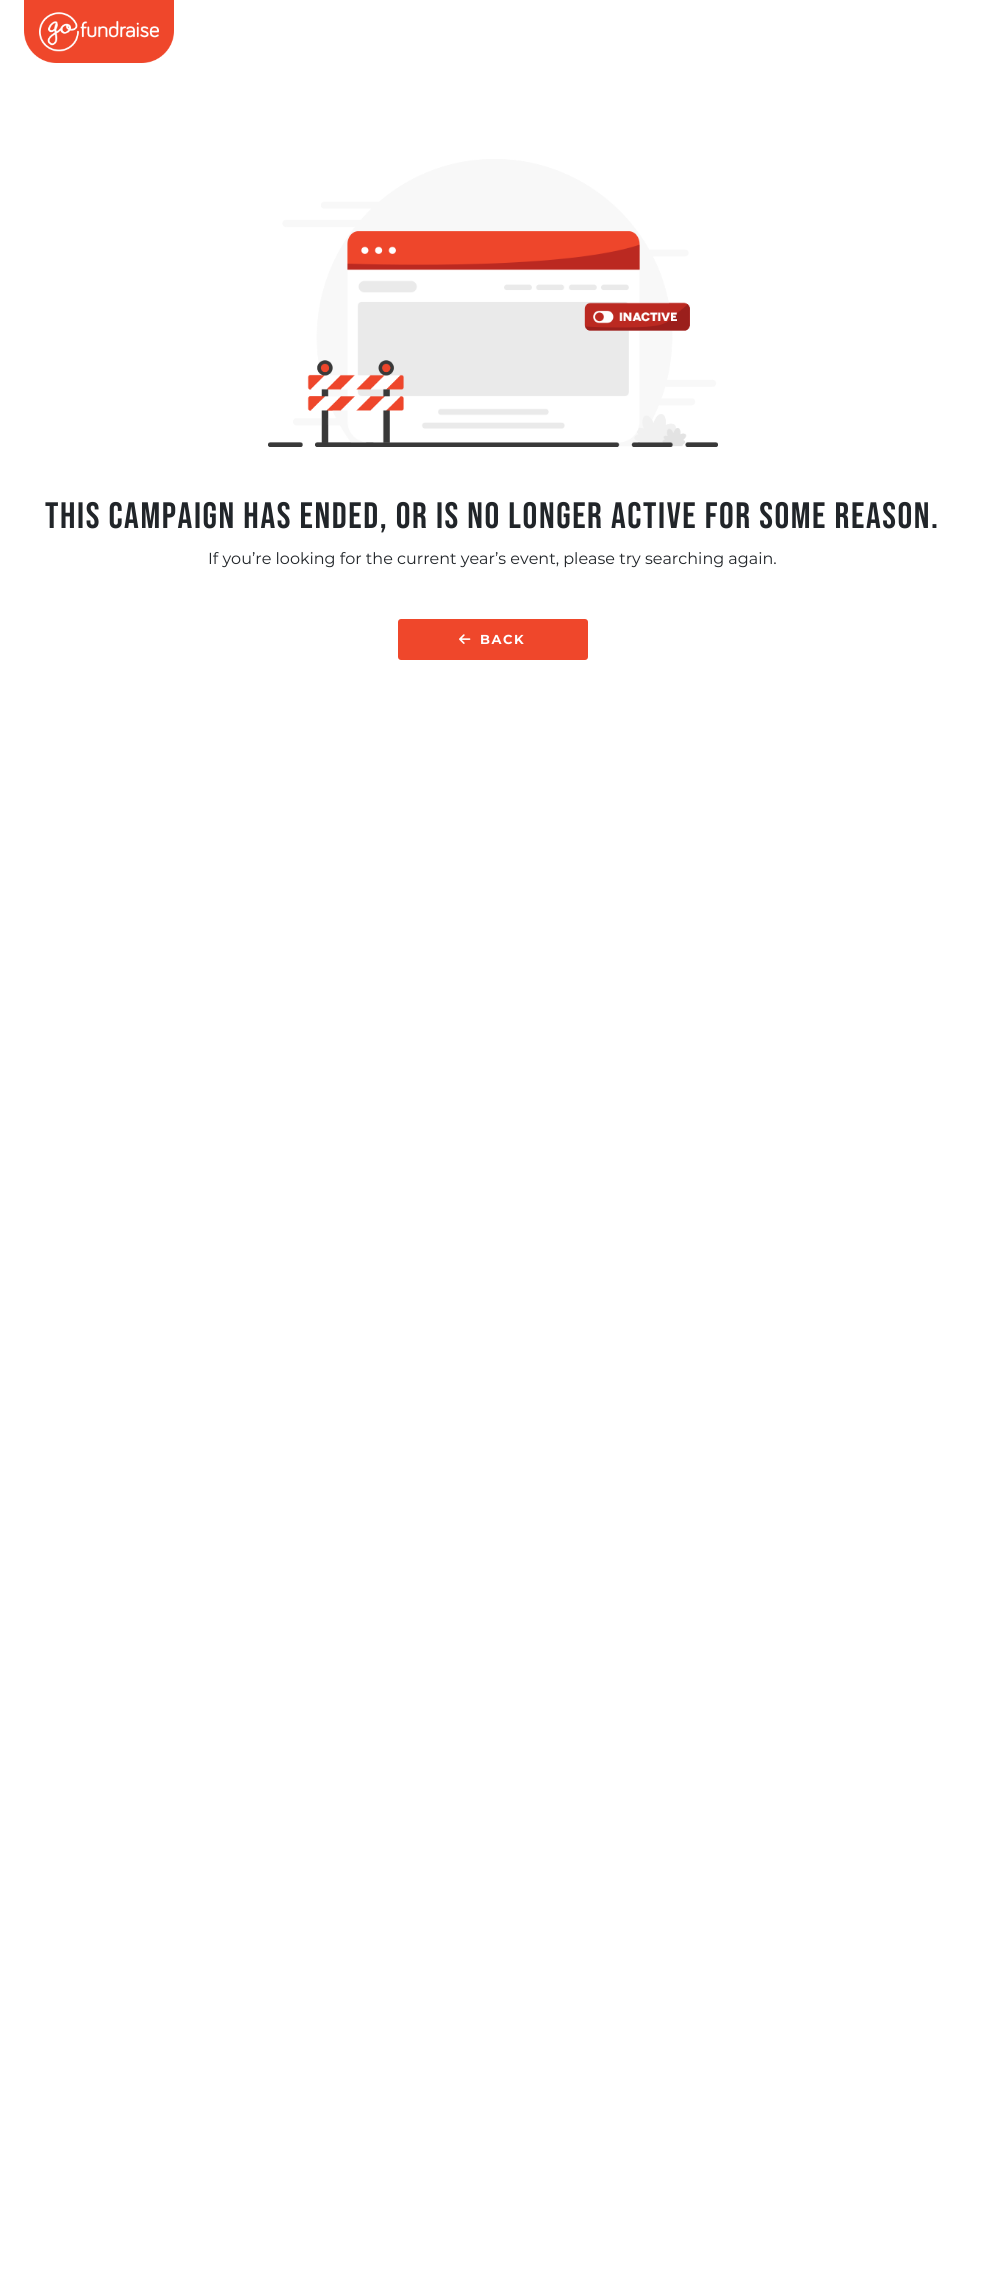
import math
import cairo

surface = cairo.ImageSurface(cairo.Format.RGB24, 985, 2275)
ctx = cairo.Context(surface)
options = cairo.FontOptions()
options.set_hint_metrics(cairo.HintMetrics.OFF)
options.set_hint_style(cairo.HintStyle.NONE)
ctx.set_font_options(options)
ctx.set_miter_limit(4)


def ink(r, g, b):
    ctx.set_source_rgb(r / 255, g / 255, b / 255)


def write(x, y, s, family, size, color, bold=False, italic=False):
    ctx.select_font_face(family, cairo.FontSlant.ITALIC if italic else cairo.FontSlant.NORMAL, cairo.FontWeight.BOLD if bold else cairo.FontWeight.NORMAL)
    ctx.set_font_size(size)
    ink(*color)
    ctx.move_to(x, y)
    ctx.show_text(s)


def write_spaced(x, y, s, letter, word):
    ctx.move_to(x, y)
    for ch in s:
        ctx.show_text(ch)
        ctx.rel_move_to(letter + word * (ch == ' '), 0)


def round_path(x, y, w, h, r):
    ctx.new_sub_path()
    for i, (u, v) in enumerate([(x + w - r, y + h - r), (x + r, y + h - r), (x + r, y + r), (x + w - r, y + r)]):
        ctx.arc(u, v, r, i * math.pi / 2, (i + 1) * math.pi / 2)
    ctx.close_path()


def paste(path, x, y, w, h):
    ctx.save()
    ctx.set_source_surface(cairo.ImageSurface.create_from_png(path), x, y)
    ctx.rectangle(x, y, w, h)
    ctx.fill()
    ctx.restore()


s1 = dict(family="Montserrat", size=16, color=(33, 37, 41))

ink(255, 255, 255)
ctx.paint()
paste("pic1.png", 24, 0, 150, 63)
paste("pic2.png", 268, 159, 450, 288)
ctx.select_font_face("Bebas Neue")
ctx.set_font_size(36.75)
ink(33, 37, 41)
write_spaced(45, 528, "This campaign has ended, or is no longer active for some reason.", 1.6, 0)
write(208, 564, "If you’re looking for the current year’s event, please try searching again.", **s1)
ink(239, 71, 43)
round_path(398, 619, 190, 41, 3)
ctx.fill()
paste("pic3.png", 459, 634, 12, 10)
ctx.select_font_face("Montserrat", cairo.FontSlant.NORMAL, cairo.FontWeight.BOLD)
ctx.set_font_size(13)
ink(255, 255, 255)
write_spaced(480, 644, "BACK", 1.6, 0)
surface.write_to_png("screenshot.png")
